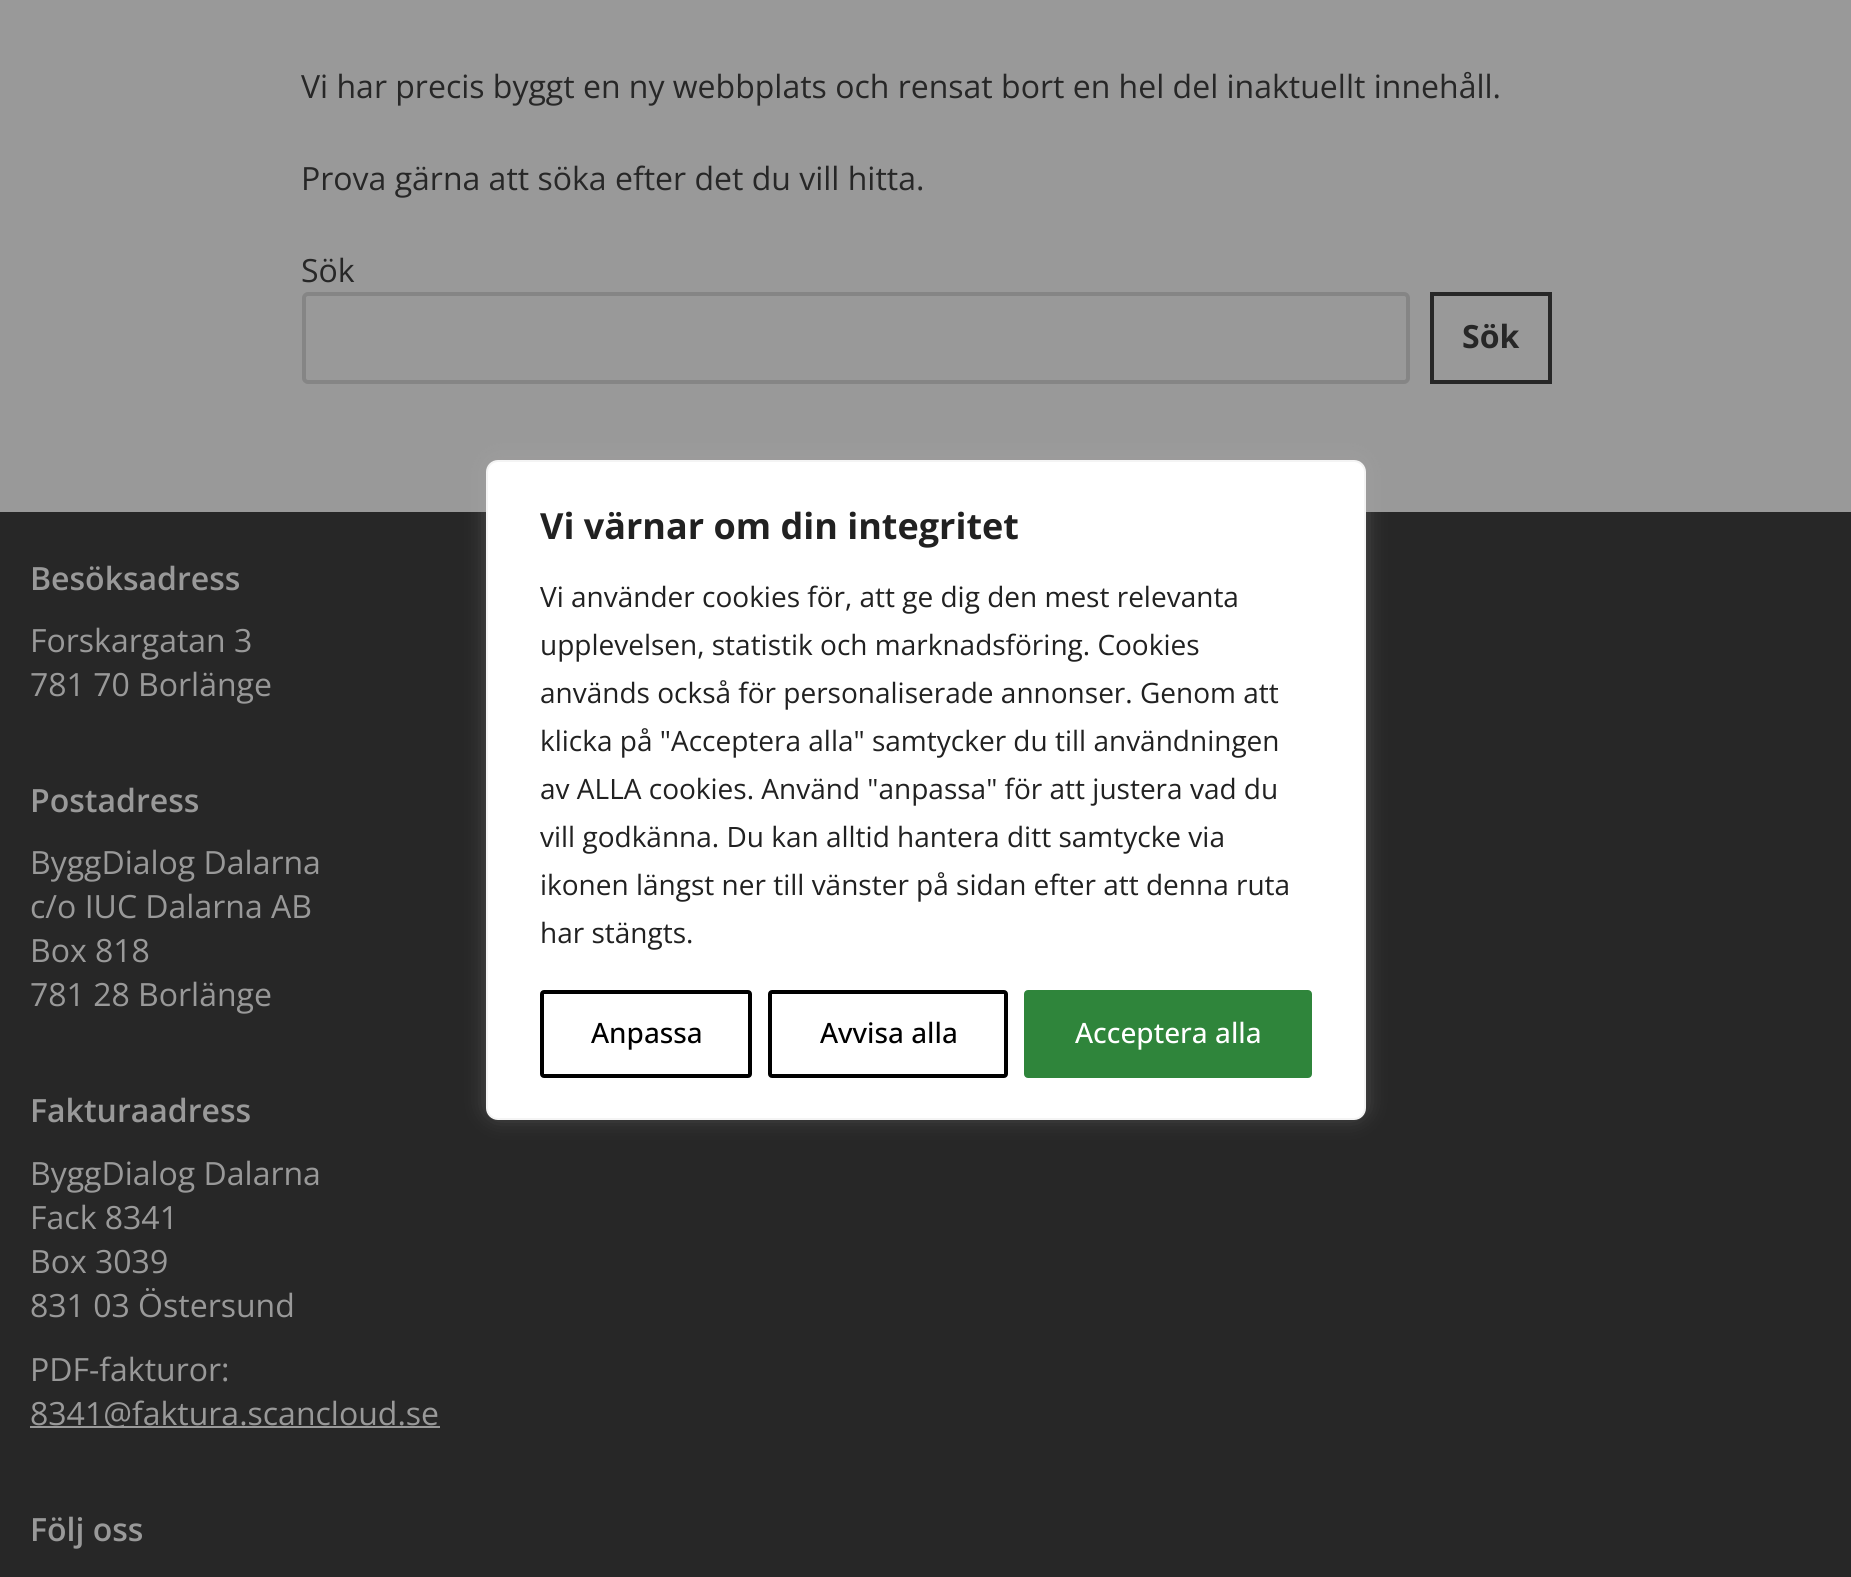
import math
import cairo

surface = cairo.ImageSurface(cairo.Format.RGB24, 1851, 1577)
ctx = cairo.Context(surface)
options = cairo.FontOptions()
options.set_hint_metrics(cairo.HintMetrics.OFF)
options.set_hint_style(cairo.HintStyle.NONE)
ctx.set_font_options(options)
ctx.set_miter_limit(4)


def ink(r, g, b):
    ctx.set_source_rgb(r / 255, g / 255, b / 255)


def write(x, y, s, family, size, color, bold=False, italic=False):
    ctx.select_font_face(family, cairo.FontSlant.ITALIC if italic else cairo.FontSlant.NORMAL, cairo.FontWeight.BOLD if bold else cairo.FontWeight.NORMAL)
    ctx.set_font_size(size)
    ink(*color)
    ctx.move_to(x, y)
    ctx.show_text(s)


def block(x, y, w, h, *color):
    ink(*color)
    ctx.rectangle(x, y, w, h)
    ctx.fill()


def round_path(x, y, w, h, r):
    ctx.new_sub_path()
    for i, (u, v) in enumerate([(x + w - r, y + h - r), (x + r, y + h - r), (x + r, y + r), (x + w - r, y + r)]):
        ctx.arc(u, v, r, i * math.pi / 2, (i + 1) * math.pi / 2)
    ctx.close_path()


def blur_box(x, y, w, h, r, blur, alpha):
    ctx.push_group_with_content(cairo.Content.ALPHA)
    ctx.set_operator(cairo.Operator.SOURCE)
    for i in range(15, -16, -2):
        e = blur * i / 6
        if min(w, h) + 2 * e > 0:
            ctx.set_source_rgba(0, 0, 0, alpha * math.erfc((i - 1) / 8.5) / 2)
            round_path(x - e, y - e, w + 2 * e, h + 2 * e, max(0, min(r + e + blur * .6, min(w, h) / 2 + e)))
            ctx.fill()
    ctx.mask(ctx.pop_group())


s1 = dict(family="Open Sans", size=32, color=(39, 39, 39))
s2 = dict(family="Open Sans", size=32, color=(39, 39, 39), bold=True)
s3 = dict(family="Open Sans SemiBold", size=32, color=(153, 153, 153))
s4 = dict(family="Open Sans", size=32, color=(153, 153, 153))
s5 = dict(family="Open Sans", size=36, color=(33, 33, 33), bold=True)
s6 = dict(family="Open Sans", size=28, color=(33, 33, 33))
s7 = dict(family="Open Sans Medium", size=28, color=(0, 0, 0))
s8 = dict(family="Open Sans Medium", size=28, color=(255, 255, 255))

ink(153, 153, 153)
ctx.paint()
write(301, 98, "Vi har precis byggt en ny webbplats och rensat bort en hel del inaktuellt innehåll.", **s1)
write(301, 190, "Prova gärna att söka efter det du vill hitta.", **s1)
write(301, 282, "Sök", **s1)
round_path(304, 294, 1104, 88, 4)
ink(133, 133, 133)
ctx.set_line_width(4)
ctx.stroke()
ctx.rectangle(1432, 294, 118, 88)
ink(39, 39, 39)
ctx.stroke()
write(1462, 348, "Sök", **s2)
block(0, 512, 1851, 1065, 39, 39, 39)
write(30, 590, "Besöksadress", **s3)
write(30, 652, "Forskargatan 3", **s4)
write(30, 696, "781 70 Borlänge", **s4)
write(30, 812, "Postadress", **s3)
write(30, 874, "ByggDialog Dalarna", **s4)
write(30, 918, "c/o IUC Dalarna AB", **s4)
write(30, 962, "Box 818", **s4)
write(30, 1006, "781 28 Borlänge", **s4)
write(30, 1122, "Fakturaadress", **s3)
write(30, 1185, "ByggDialog Dalarna", **s4)
write(30, 1229, "Fack 8341", **s4)
write(30, 1273, "Box 3039", **s4)
write(30, 1317, "831 03 Östersund", **s4)
write(30, 1381, "PDF-fakturor:", **s4)
block(30, 1426, 410, 2, 153, 153, 153)
write(30, 1425, "8341@faktura.scancloud.se", **s4)
write(30, 1541, "Följ oss", **s3)
ink(172, 171, 171)
blur_box(486, 458, 880, 660, 12, 10, 0.3)
ink(255, 255, 255)
round_path(487, 461, 878, 658, 11)
ctx.fill_preserve()
ink(244, 244, 244)
ctx.set_line_width(2)
ctx.stroke()
write(540, 539, "Vi värnar om din integritet", **s5)
write(540, 607, "Vi använder cookies för, att ge dig den mest relevanta", **s6)
write(540, 655, "upplevelsen, statistik och marknadsföring. Cookies", **s6)
write(540, 703, "används också för personaliserade annonser. Genom att", **s6)
write(540, 751, "klicka på \"Acceptera alla\" samtycker du till användningen", **s6)
write(540, 799, "av ALLA cookies. Använd \"anpassa\" för att justera vad du", **s6)
write(540, 847, "vill godkänna. Du kan alltid hantera ditt samtycke via", **s6)
write(540, 895, "ikonen längst ner till vänster på sidan efter att denna ruta", **s6)
write(540, 943, "har stängts.", **s6)
round_path(542, 992, 208, 84, 2)
ink(0, 0, 0)
ctx.set_line_width(4)
ctx.stroke()
write(591, 1043, "Anpassa", **s7)
round_path(770, 992, 236, 84, 2)
ctx.stroke()
write(820, 1043, "Avvisa alla", **s7)
ink(47, 133, 59)
round_path(1026, 992, 284, 84, 2)
ctx.fill_preserve()
ctx.stroke()
write(1075, 1043, "Acceptera alla", **s8)
surface.write_to_png("screenshot.png")
